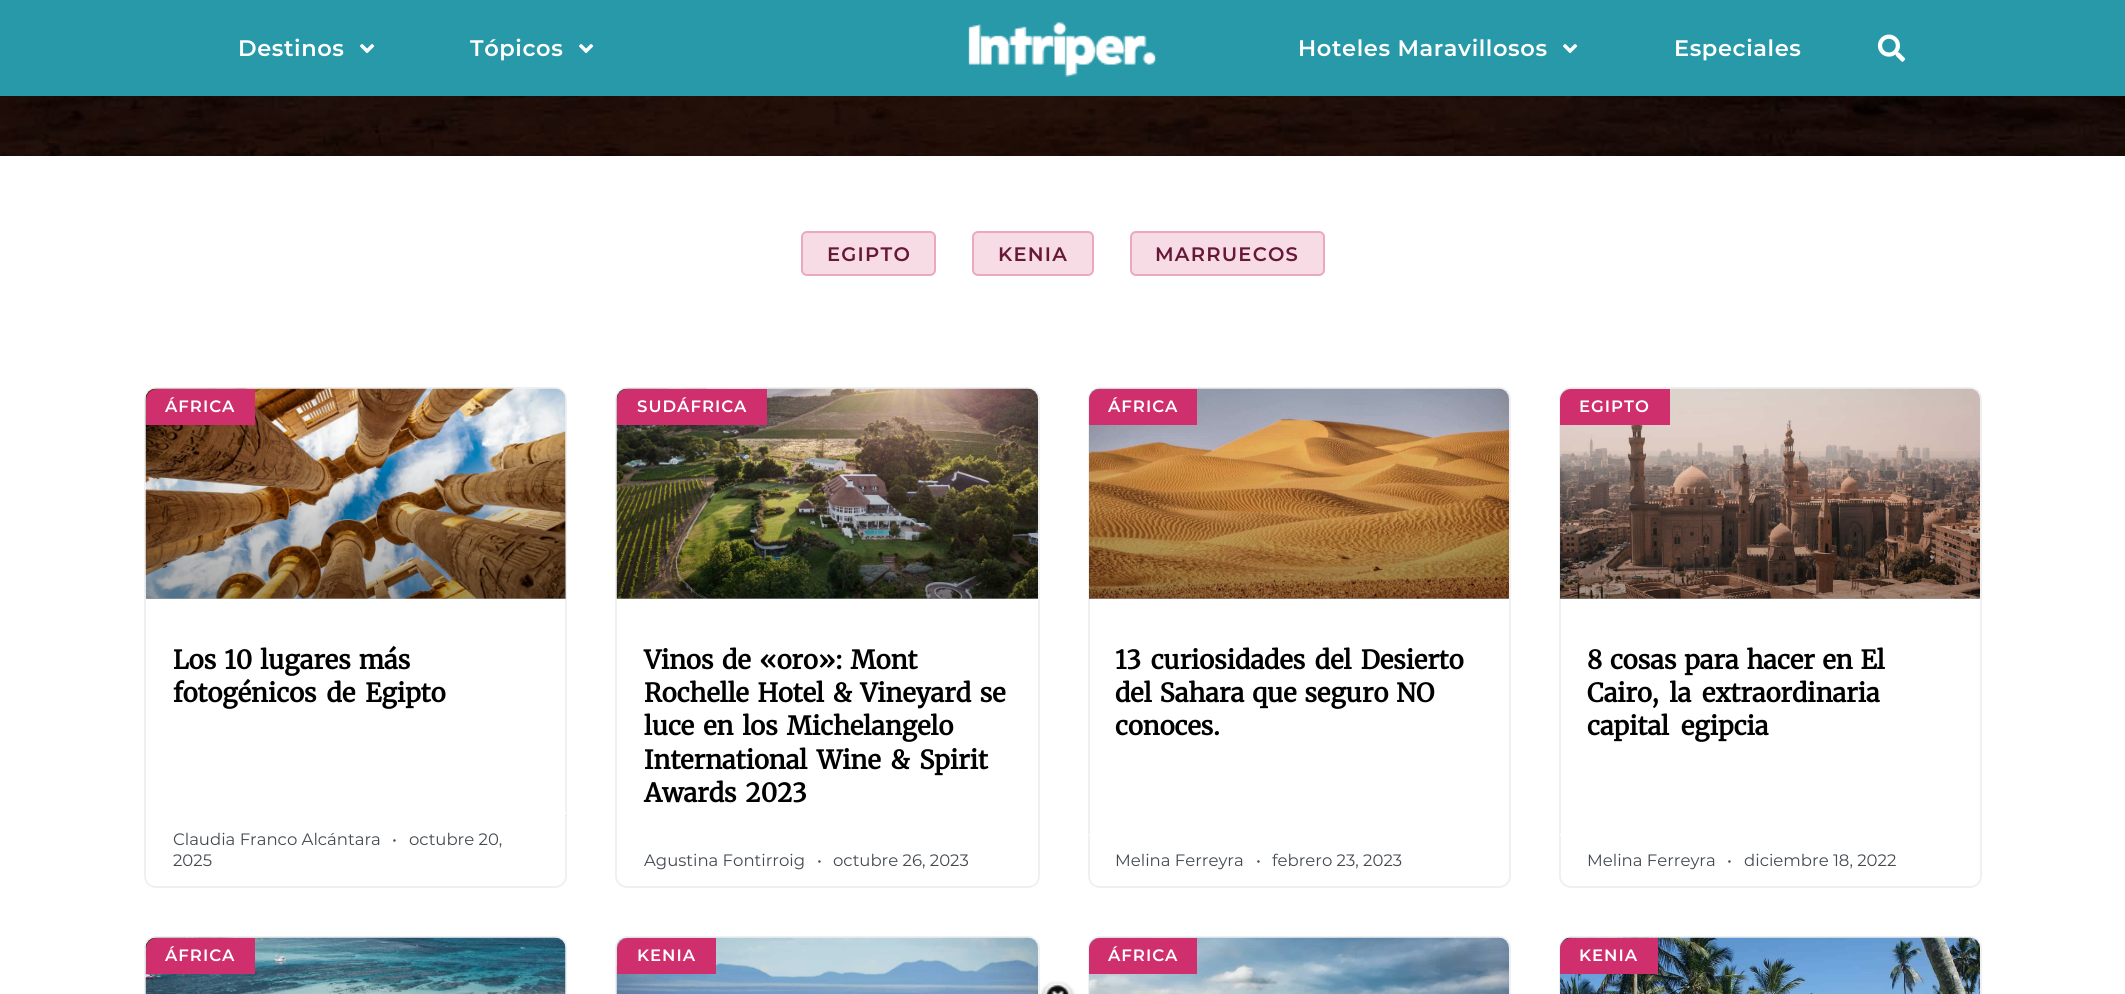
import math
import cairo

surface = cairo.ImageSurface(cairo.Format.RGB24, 2125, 994)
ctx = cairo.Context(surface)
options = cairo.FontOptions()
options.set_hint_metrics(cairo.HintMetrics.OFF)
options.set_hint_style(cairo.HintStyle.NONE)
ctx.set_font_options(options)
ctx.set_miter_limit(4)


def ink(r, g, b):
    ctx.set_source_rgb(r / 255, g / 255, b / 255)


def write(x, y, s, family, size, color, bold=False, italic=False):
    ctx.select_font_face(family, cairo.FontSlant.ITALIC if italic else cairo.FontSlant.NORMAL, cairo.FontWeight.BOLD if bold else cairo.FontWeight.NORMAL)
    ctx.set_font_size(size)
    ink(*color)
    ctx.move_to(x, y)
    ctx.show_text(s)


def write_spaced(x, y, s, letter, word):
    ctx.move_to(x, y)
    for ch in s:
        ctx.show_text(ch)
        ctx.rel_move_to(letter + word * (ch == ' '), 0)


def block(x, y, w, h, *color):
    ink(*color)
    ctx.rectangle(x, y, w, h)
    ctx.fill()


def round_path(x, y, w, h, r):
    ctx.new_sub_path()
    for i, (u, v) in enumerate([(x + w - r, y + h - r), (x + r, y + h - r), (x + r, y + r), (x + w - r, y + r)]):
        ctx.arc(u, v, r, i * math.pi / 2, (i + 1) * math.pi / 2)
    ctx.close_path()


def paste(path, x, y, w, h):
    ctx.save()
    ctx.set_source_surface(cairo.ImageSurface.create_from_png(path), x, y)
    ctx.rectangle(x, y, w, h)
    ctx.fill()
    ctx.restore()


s1 = dict(family="Montserrat", size=16.5, color=(68, 74, 81))
s2 = dict(family="Merriweather", size=25.5, color=(0, 0, 0), bold=True)

ink(255, 255, 255)
ctx.paint()
block(0, 0, 2125, 96, 39, 153, 169)
ctx.select_font_face("Montserrat SemiBold")
ctx.set_font_size(22.5)
ink(255, 255, 255)
write_spaced(238, 56, "Destinos", 0.6, 0)
paste("pic1.png", 360, 44, 15, 10)
write_spaced(470, 56, "Tópicos", 0.6, 0)
paste("pic1.png", 579, 44, 15, 10)
paste("pic2.png", 968, 22, 188, 55)
write_spaced(1298, 56, "Hoteles Maravillosos", 0.6, 0)
paste("pic1.png", 1563, 44, 15, 10)
write_spaced(1674, 56, "Especiales", 0.6, 0)
paste("pic3.png", 1877, 34, 29, 28)
paste("pic4.png", 0, 96, 2125, 60)
ink(247, 220, 230)
round_path(802, 232, 133, 43, 5)
ctx.fill_preserve()
ink(235, 168, 194)
ctx.stroke()
ctx.set_font_size(19.5)
ink(104, 24, 55)
write_spaced(827, 261, "EGIPTO", 1.25, 0)
ink(247, 220, 230)
round_path(973, 232, 120, 43, 5)
ctx.fill_preserve()
ink(235, 168, 194)
ctx.stroke()
ink(104, 24, 55)
write_spaced(998, 261, "KENIA", 1.25, 0)
ink(247, 220, 230)
round_path(1131, 232, 193, 43, 5)
ctx.fill_preserve()
ink(235, 168, 194)
ctx.stroke()
ink(104, 24, 55)
write_spaced(1155, 261, "MARRUECOS", 1.25, 0)
round_path(145, 388, 421, 499, 11)
ink(239, 240, 242)
ctx.stroke()
paste("pic5.png", 145, 388, 421, 211)
gradient = cairo.LinearGradient(356, 599, 356, 389)
gradient.add_color_stop_rgba(0, 0, 0, 0, 0.35)
gradient.add_color_stop_rgba(0.75, 0, 0, 0, 0)
ctx.set_source(gradient)
ctx.rectangle(146, 451, 420, 148)
ctx.fill()
ink(208, 47, 109)
ctx.new_path()
ctx.move_to(157, 389)
ctx.line_to(255, 389)
ctx.line_to(255, 425)
ctx.line_to(146, 425)
ctx.line_to(146, 400)
ctx.curve_to(146, 394, 151, 389, 157, 389)
ctx.close_path()
ctx.fill()
ctx.set_font_size(16.5)
ink(255, 255, 255)
write_spaced(165, 412, "ÁFRICA", 1, 0)
ctx.select_font_face("Merriweather", cairo.FontSlant.NORMAL, cairo.FontWeight.BOLD)
ctx.set_font_size(25.5)
ink(0, 0, 0)
write_spaced(173, 669, "Los 10 lugares más", 0, 2)
write_spaced(173, 702, "fotogénicos de Egipto", 0, 4)
block(565, 812, 1, 2, 255, 255, 255)
write(173, 845, "Claudia Franco Alcántara", **s1)
write(392, 845, "•", **s1)
write(409, 845, "octubre 20,", **s1)
write(173, 866, "2025", **s1)
round_path(616, 388, 423, 499, 11)
ink(239, 240, 242)
ctx.stroke()
paste("pic6.png", 616, 388, 422, 211)
gradient = cairo.LinearGradient(827, 599, 827, 389)
gradient.add_color_stop_rgba(0, 0, 0, 0, 0.35)
gradient.add_color_stop_rgba(0.75, 0, 0, 0, 0)
ctx.set_source(gradient)
ctx.rectangle(617, 451, 421, 148)
ctx.fill()
ink(208, 47, 109)
ctx.new_path()
ctx.move_to(628, 389)
ctx.line_to(767, 389)
ctx.line_to(767, 425)
ctx.line_to(617, 425)
ctx.line_to(617, 400)
ctx.curve_to(617, 394, 622, 389, 628, 389)
ctx.close_path()
ctx.fill()
ctx.select_font_face("Montserrat SemiBold")
ink(255, 255, 255)
write_spaced(637, 412, "SUDÁFRICA", 1, 0)
ctx.select_font_face("Merriweather", cairo.FontSlant.NORMAL, cairo.FontWeight.BOLD)
ctx.set_font_size(25.5)
ink(0, 0, 0)
write_spaced(644, 669, "Vinos de «oro»: Mont", 0, 2.5)
write_spaced(644, 702, "Rochelle Hotel & Vineyard se", 0, 2.5)
write_spaced(644, 735, "luce en los Michelangelo", 0, 3)
write_spaced(644, 769, "International Wine & Spirit", 0, 3.5)
write_spaced(644, 802, "Awards 2023", 0, 3)
write(644, 866, "Agustina Fontirroig", **s1)
write(817, 866, "•", **s1)
write(833, 866, "octubre 26, 2023", **s1)
round_path(1089, 388, 421, 499, 11)
ink(239, 240, 242)
ctx.stroke()
paste("pic7.png", 1089, 388, 420, 211)
gradient = cairo.LinearGradient(1299, 599, 1299, 389)
gradient.add_color_stop_rgba(0, 0, 0, 0, 0.35)
gradient.add_color_stop_rgba(0.75, 0, 0, 0, 0)
ctx.set_source(gradient)
ctx.rectangle(1089, 451, 420, 148)
ctx.fill()
ink(208, 47, 109)
ctx.new_path()
ctx.move_to(1100, 389)
ctx.line_to(1197, 389)
ctx.line_to(1197, 425)
ctx.line_to(1089, 425)
ctx.line_to(1089, 400)
ctx.curve_to(1089, 394, 1094, 389, 1100, 389)
ctx.close_path()
ctx.fill()
ctx.select_font_face("Montserrat SemiBold")
ink(255, 255, 255)
write_spaced(1108, 412, "ÁFRICA", 1, 0)
ctx.select_font_face("Merriweather", cairo.FontSlant.NORMAL, cairo.FontWeight.BOLD)
ctx.set_font_size(25.5)
ink(0, 0, 0)
write_spaced(1115, 669, "13 curiosidades del Desierto", 0, 3.5)
write_spaced(1115, 702, "del Sahara que seguro NO", 0, 2)
write(1115, 735, "conoces.", **s2)
block(1089, 834, 1, 2, 255, 255, 255)
write(1115, 866, "Melina Ferreyra", **s1)
write(1256, 866, "•", **s1)
write(1272, 866, "febrero 23, 2023", **s1)
round_path(1560, 388, 421, 499, 11)
ink(239, 240, 242)
ctx.stroke()
paste("pic8.png", 1560, 388, 420, 211)
gradient = cairo.LinearGradient(1770, 599, 1770, 389)
gradient.add_color_stop_rgba(0, 0, 0, 0, 0.35)
gradient.add_color_stop_rgba(0.75, 0, 0, 0, 0)
ctx.set_source(gradient)
ctx.rectangle(1560, 451, 420, 148)
ctx.fill()
ink(208, 47, 109)
ctx.new_path()
ctx.move_to(1571, 389)
ctx.line_to(1670, 389)
ctx.line_to(1670, 425)
ctx.line_to(1560, 425)
ctx.line_to(1560, 400)
ctx.curve_to(1560, 394, 1565, 389, 1571, 389)
ctx.close_path()
ctx.fill()
ctx.select_font_face("Montserrat SemiBold")
ink(255, 255, 255)
write_spaced(1579, 412, "EGIPTO", 1, 0)
ctx.select_font_face("Merriweather", cairo.FontSlant.NORMAL, cairo.FontWeight.BOLD)
ctx.set_font_size(25.5)
ink(0, 0, 0)
write_spaced(1587, 669, "8 cosas para hacer en El", 0, 1.75)
write_spaced(1587, 702, "Cairo, la extraordinaria", 0, 5)
write_spaced(1587, 735, "capital egipcia", 0, 6)
block(1560, 834, 1, 2, 255, 255, 255)
write(1587, 866, "Melina Ferreyra", **s1)
write(1727, 866, "•", **s1)
write(1744, 866, "diciembre 18, 2022", **s1)
round_path(145, 937, 421, 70, 11)
ink(239, 240, 242)
ctx.stroke()
paste("pic9.png", 145, 937, 421, 57)
ink(208, 47, 109)
ctx.new_path()
ctx.move_to(157, 938)
ctx.line_to(255, 938)
ctx.line_to(255, 974)
ctx.line_to(146, 974)
ctx.line_to(146, 949)
ctx.curve_to(146, 943, 151, 938, 157, 938)
ctx.close_path()
ctx.fill()
ctx.select_font_face("Montserrat SemiBold")
ink(255, 255, 255)
write_spaced(165, 961, "ÁFRICA", 1, 0)
round_path(616, 937, 423, 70, 11)
ink(239, 240, 242)
ctx.stroke()
paste("pic10.png", 616, 937, 422, 57)
ink(208, 47, 109)
ctx.new_path()
ctx.move_to(628, 938)
ctx.line_to(716, 938)
ctx.line_to(716, 974)
ctx.line_to(617, 974)
ctx.line_to(617, 949)
ctx.curve_to(617, 943, 622, 938, 628, 938)
ctx.close_path()
ctx.fill()
ink(255, 255, 255)
write_spaced(637, 961, "KENIA", 1, 0)
round_path(1089, 937, 421, 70, 11)
ink(239, 240, 242)
ctx.stroke()
paste("pic11.png", 1089, 937, 420, 57)
ink(208, 47, 109)
ctx.new_path()
ctx.move_to(1100, 938)
ctx.line_to(1197, 938)
ctx.line_to(1197, 974)
ctx.line_to(1089, 974)
ctx.line_to(1089, 949)
ctx.curve_to(1089, 943, 1094, 938, 1100, 938)
ctx.close_path()
ctx.fill()
ink(255, 255, 255)
write_spaced(1108, 961, "ÁFRICA", 1, 0)
round_path(1560, 937, 421, 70, 11)
ink(239, 240, 242)
ctx.stroke()
paste("pic12.png", 1560, 937, 420, 57)
ink(208, 47, 109)
ctx.new_path()
ctx.move_to(1571, 938)
ctx.line_to(1658, 938)
ctx.line_to(1658, 974)
ctx.line_to(1560, 974)
ctx.line_to(1560, 949)
ctx.curve_to(1560, 943, 1565, 938, 1571, 938)
ctx.close_path()
ctx.fill()
ink(255, 255, 255)
write_spaced(1579, 961, "KENIA", 1, 0)
paste("pic13.png", 1040, 981, 36, 13)
surface.write_to_png("screenshot.png")
